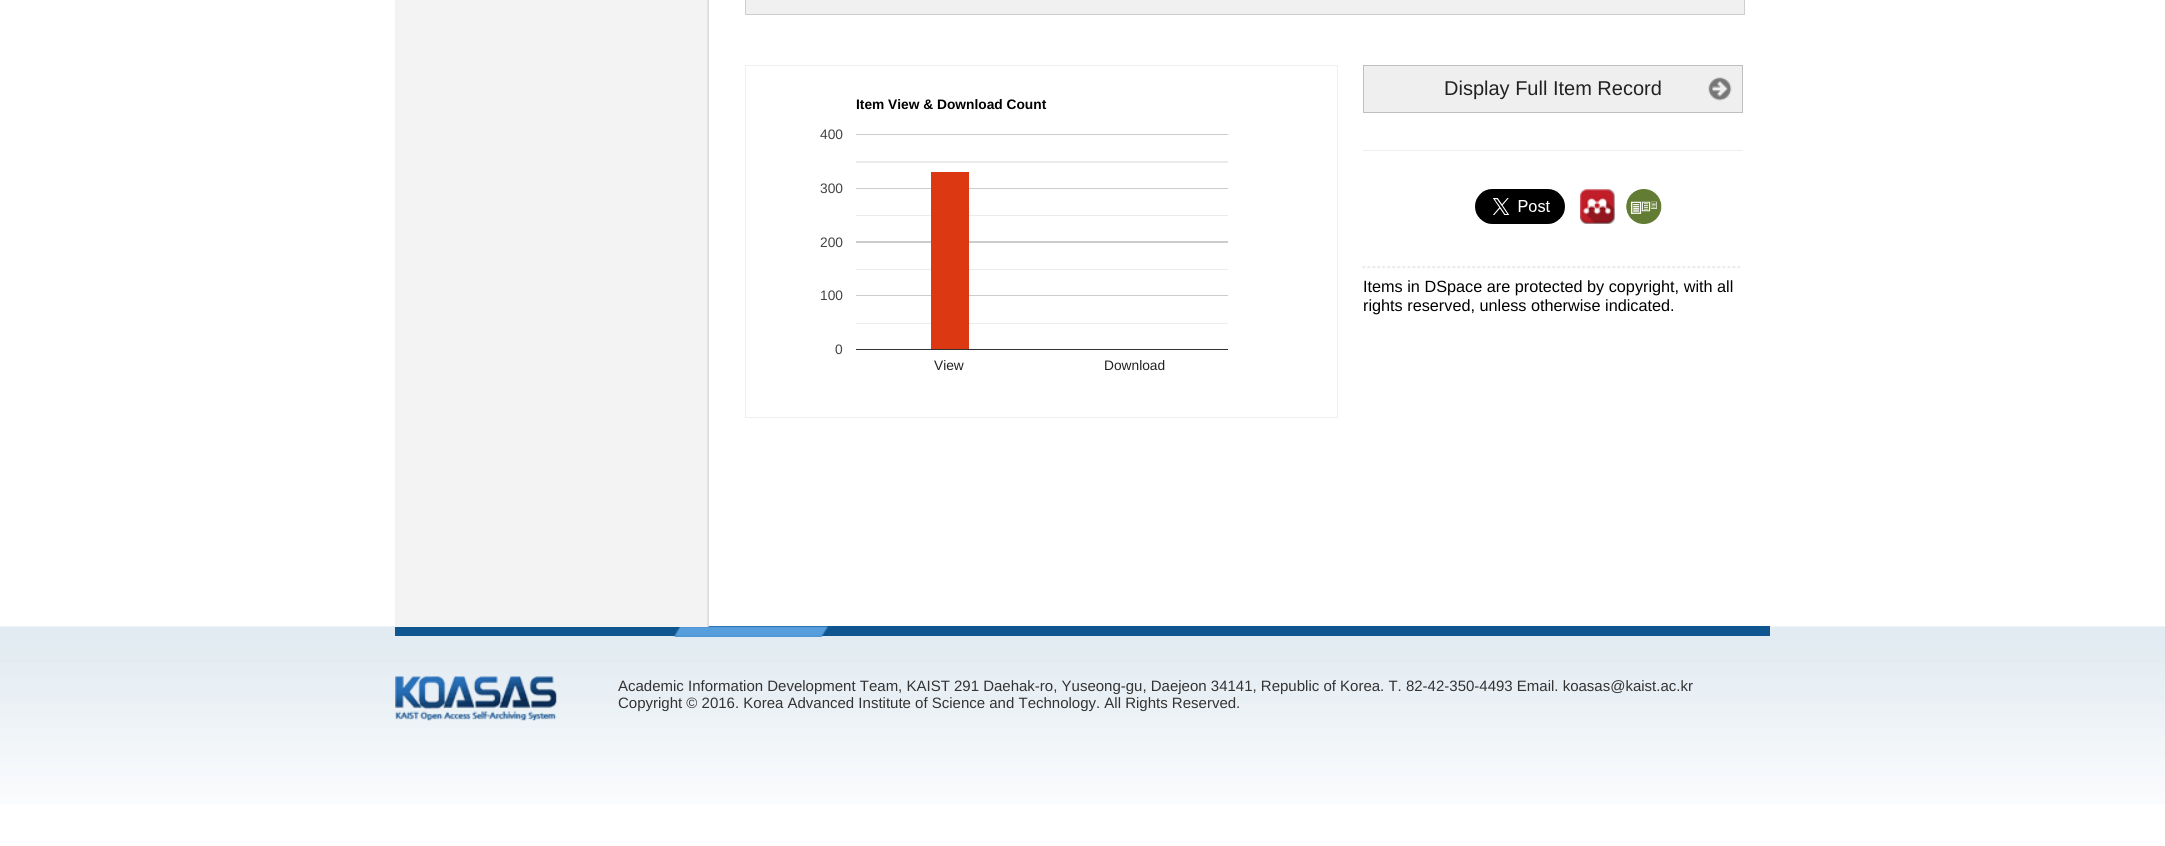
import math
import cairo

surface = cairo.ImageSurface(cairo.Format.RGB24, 2165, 846)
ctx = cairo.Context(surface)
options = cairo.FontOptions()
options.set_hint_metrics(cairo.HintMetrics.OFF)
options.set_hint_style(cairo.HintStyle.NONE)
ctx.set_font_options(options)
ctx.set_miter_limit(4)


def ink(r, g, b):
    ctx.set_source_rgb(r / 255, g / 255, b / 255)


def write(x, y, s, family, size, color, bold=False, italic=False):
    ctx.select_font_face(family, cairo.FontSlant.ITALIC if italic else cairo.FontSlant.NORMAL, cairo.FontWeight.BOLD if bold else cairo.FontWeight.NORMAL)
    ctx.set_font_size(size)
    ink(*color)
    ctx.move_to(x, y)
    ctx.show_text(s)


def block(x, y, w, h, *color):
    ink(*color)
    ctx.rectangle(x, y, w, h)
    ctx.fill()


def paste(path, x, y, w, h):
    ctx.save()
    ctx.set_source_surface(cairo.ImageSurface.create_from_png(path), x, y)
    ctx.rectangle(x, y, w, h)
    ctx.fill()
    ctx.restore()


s1 = dict(family="Liberation Sans", size=20, color=(34, 34, 34))
s2 = dict(family="Liberation Sans", size=13.75, color=(0, 0, 0), bold=True)
s3 = dict(family="Liberation Sans", size=13.75, color=(68, 68, 68))
s4 = dict(family="Liberation Sans", size=13.75, color=(34, 34, 34))
s5 = dict(family="Liberation Sans", size=16.25, color=(0, 0, 0))
s6 = dict(family="Liberation Sans", size=15, color=(51, 51, 51))

ink(255, 255, 255)
ctx.paint()
paste("pic7.png", 0, 626, 2165, 178)
block(395, 626, 1375, 10, 15, 85, 144)
paste("pic8.png", 673, 626, 155, 11)
paste("pic1.png", 395, 0, 314, 627)
ink(240, 240, 240)
ctx.rectangle(745.5, -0.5, 999, 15)
ctx.fill_preserve()
ink(206, 206, 206)
ctx.set_line_width(1)
ctx.stroke()
block(1364, 66, 378, 46, 239, 239, 239)
paste("pic2.png", 1708, 77, 24, 24)
ctx.rectangle(1363.5, 65.5, 379, 47)
ink(191, 191, 191)
ctx.stroke()
write(1444, 95, "Display Full Item Record", **s1)
ctx.rectangle(745.5, 65.5, 592, 352)
ink(238, 238, 238)
ctx.stroke()
write(856, 109, "Item View & Download Count", **s2)
write(820, 139, "400", **s3)
block(856, 134, 372, 1, 204, 204, 204)
write(820, 193, "300", **s3)
block(856, 188, 372, 1, 204, 204, 204)
block(856, 161, 372, 2, 235, 235, 235)
write(820, 247, "200", **s3)
block(856, 241, 372, 2, 204, 204, 204)
block(856, 215, 372, 1, 235, 235, 235)
block(856, 295, 372, 1, 204, 204, 204)
block(856, 269, 372, 1, 235, 235, 235)
block(856, 323, 372, 1, 235, 235, 235)
block(931, 172, 38, 177, 220, 57, 18)
write(820, 300, "100", **s3)
write(835, 354, "0", **s3)
block(856, 349, 372, 1, 51, 51, 51)
write(934, 370, "View", **s4)
write(1104, 370, "Download", **s4)
block(1363, 150, 380, 1, 238, 238, 238)
paste("pic3.png", 1362, 266, 379, 3)
paste("pic4.png", 1475, 189, 90, 35)
paste("pic5.png", 1580, 189, 35, 35)
paste("pic6.png", 1626, 189, 36, 35)
write(1363, 292, "Items in DSpace are protected by copyright, with all", **s5)
write(1363, 311, "rights reserved, unless otherwise indicated.", **s5)
paste("pic9.png", 395, 676, 162, 45)
write(618, 691, "Academic Information Development Team, KAIST 291 Daehak-ro, Yuseong-gu, Daejeon 34141, Republic of Korea. T. 82-42-350-4493 Email. koasas@kaist.ac.kr", **s6)
write(618, 708, "Copyright © 2016. Korea Advanced Institute of Science and Technology. All Rights Reserved.", **s6)
surface.write_to_png("screenshot.png")
